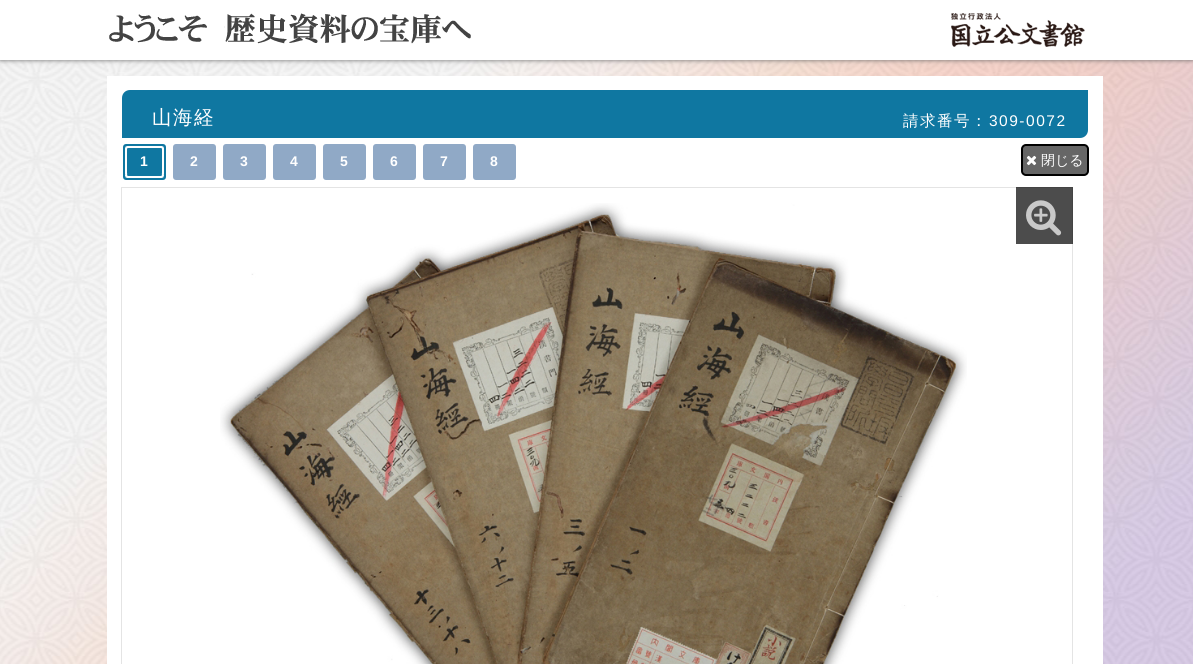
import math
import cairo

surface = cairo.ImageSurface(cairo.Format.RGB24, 1193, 664)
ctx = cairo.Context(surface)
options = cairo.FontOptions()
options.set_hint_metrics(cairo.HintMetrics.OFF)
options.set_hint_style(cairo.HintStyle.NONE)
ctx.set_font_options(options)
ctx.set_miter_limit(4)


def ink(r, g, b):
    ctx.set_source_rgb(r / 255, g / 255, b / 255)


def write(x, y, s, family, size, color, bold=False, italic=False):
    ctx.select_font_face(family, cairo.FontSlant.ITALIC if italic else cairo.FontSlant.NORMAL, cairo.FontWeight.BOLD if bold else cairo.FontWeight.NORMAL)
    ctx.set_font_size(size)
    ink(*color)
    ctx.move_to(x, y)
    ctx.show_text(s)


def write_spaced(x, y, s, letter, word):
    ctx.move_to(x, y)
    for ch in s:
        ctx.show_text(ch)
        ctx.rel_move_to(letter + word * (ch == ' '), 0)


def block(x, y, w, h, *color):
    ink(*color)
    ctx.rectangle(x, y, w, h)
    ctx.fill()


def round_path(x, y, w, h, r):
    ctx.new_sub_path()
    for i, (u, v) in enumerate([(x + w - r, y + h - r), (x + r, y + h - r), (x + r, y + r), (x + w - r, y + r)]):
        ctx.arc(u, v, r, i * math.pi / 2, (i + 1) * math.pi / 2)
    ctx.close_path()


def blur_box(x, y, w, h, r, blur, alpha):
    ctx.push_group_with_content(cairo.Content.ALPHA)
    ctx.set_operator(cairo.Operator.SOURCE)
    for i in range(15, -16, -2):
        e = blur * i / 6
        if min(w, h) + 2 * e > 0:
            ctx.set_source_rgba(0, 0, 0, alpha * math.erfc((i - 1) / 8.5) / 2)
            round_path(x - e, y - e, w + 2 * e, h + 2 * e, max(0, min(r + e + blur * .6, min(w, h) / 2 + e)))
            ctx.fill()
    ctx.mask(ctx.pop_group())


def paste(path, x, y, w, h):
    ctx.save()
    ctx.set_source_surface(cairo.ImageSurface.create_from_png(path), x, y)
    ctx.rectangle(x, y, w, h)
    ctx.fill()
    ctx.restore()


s1 = dict(family="Liberation Sans", size=14, color=(255, 255, 255), bold=True)
s2 = dict(family="WenQuanYi Zen Hei Medium", size=14, color=(255, 255, 255))

ink(255, 255, 255)
ctx.paint()
paste("pic1.png", 0, 60, 1193, 604)
ink(102, 102, 102)
blur_box(0, 0, 1193, 60, 0, 2.5, 1)
block(0, 0, 1193, 60, 255, 255, 255)
paste("pic2.png", 109, 13, 362, 31)
paste("pic3.png", 951, 13, 134, 34)
block(107, 76, 996, 588, 255, 255, 255)
ink(15, 119, 161)
ctx.new_path()
ctx.move_to(130, 90)
ctx.line_to(1088, 90)
ctx.line_to(1088, 130)
ctx.curve_to(1088, 134.5, 1084.5, 138, 1080, 138)
ctx.line_to(122, 138)
ctx.line_to(122, 98)
ctx.curve_to(122, 93.5, 125.5, 90, 130, 90)
ctx.close_path()
ctx.fill()
ctx.select_font_face("WenQuanYi Zen Hei Medium")
ctx.set_font_size(19.5)
ink(255, 255, 255)
write_spaced(152, 124, "山海経", 1.5, 0)
ctx.set_font_size(15.5)
write_spaced(903, 126, "請求番号：", 1.5, 0)
ctx.select_font_face("Liberation Sans")
write_spaced(989, 126, "309-0072", 1.5, 0)
ink(15, 119, 161)
round_path(123, 144, 43, 36, 3)
ctx.fill()
paste("pic4.png", 125, 146, 39, 32)
write(140, 166, "1", **s1)
ink(144, 169, 198)
round_path(173, 144, 43, 36, 3)
ctx.fill()
write(190, 166, "2", **s1)
ink(144, 169, 198)
round_path(223, 144, 43, 36, 3)
ctx.fill()
write(240, 166, "3", **s1)
ink(144, 169, 198)
round_path(273, 144, 43, 36, 3)
ctx.fill()
write(290, 166, "4", **s1)
ink(144, 169, 198)
round_path(323, 144, 43, 36, 3)
ctx.fill()
write(340, 166, "5", **s1)
ink(144, 169, 198)
round_path(373, 144, 43, 36, 3)
ctx.fill()
write(390, 166, "6", **s1)
ink(144, 169, 198)
round_path(423, 144, 43, 36, 3)
ctx.fill()
write(440, 166, "7", **s1)
ink(144, 169, 198)
round_path(473, 144, 43, 36, 3)
ctx.fill()
write(490, 166, "8", **s1)
ink(102, 102, 102)
round_path(1022, 145, 66, 30, 4)
ctx.fill_preserve()
ink(0, 0, 0)
ctx.stroke()
paste("pic5.png", 1026, 155, 11, 11)
write(1041, 165, "閉じる", **s2)
ctx.rectangle(121.5, 187.5, 951, 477)
ink(228, 228, 228)
ctx.set_line_width(1)
ctx.stroke()
paste("pic6.png", 220, 203, 747, 461)
ctx.set_source_rgba(0, 0, 0, 0.7)
ctx.rectangle(1016, 187, 57, 57)
ctx.fill()
paste("pic7.png", 1026, 200, 36, 36)
surface.write_to_png("screenshot.png")
